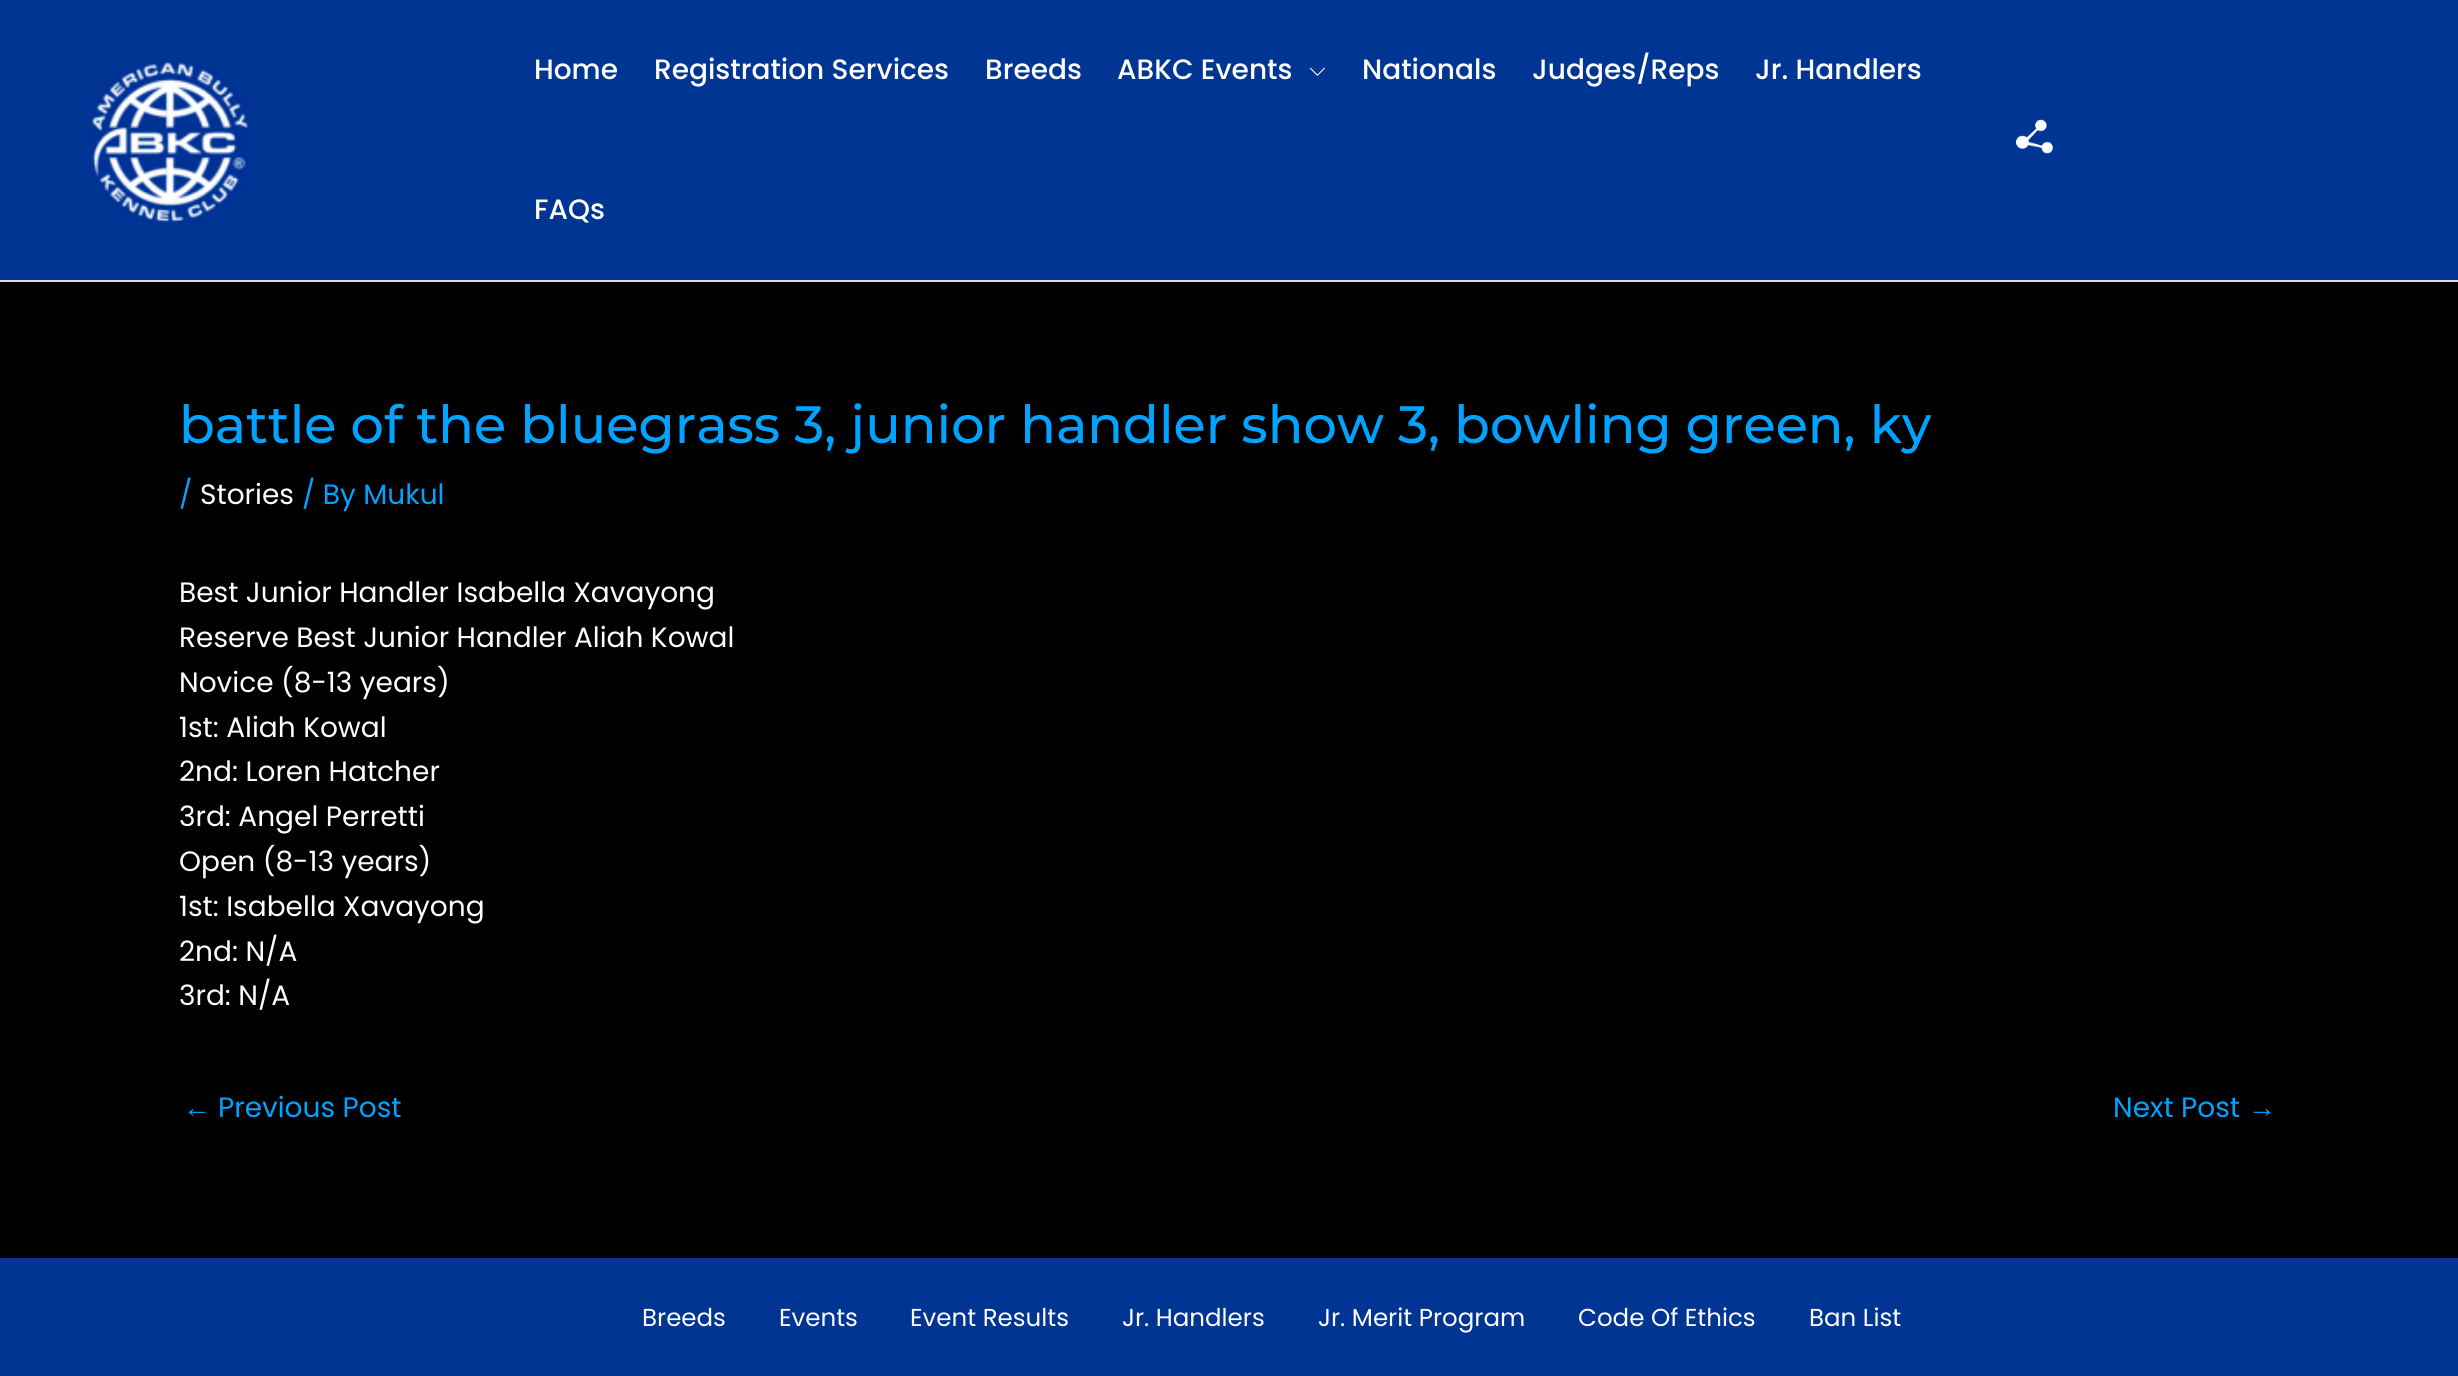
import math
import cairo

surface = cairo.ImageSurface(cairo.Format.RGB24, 2458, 1376)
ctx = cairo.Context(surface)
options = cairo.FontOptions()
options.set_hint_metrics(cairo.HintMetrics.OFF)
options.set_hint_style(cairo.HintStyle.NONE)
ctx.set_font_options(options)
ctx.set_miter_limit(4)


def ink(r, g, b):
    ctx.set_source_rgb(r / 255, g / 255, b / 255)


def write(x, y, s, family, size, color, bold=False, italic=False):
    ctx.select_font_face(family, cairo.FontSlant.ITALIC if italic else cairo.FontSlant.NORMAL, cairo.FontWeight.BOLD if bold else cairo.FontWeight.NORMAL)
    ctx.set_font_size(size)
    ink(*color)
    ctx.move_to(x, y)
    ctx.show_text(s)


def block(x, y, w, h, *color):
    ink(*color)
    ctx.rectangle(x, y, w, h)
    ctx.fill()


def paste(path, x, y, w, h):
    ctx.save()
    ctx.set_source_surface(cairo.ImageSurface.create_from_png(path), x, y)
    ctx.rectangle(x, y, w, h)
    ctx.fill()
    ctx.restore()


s1 = dict(family="Poppins Medium", size=28, color=(255, 255, 255))
s2 = dict(family="Montserrat Medium", size=52.5, color=(0, 163, 255))
s3 = dict(family="Poppins", size=28, color=(0, 163, 255))
s4 = dict(family="Poppins", size=28, color=(255, 255, 255))
s5 = dict(family="Liberation Sans", size=28, color=(0, 163, 255))
s6 = dict(family="Poppins", size=24.5, color=(255, 255, 255))

ink(0, 0, 0)
ctx.paint()
block(0, 0, 2458, 280, 0, 53, 148)
block(0, 280, 2458, 2, 221, 221, 221)
paste("pic1.png", 92, 62, 157, 161)
write(534, 79, "Home", **s1)
write(654, 79, "Registration Services", **s1)
write(985, 79, "Breeds", **s1)
write(1117, 79, "ABKC Events", **s1)
paste("pic2.png", 1309, 67, 16, 9)
write(1362, 79, "Nationals", **s1)
write(1532, 79, "Judges/Reps", **s1)
write(1755, 79, "Jr. Handlers", **s1)
write(534, 219, "FAQs", **s1)
paste("pic3.png", 2016, 119, 37, 35)
write(179, 443, "battle of the bluegrass 3, junior handler show 3, bowling green, ky", **s2)
write(179, 504, "/", **s3)
write(200, 504, "Stories", **s4)
write(302, 504, "/ By Mukul", **s3)
write(179, 602, "Best Junior Handler Isabella Xavayong", **s4)
write(179, 647, "Reserve Best Junior Handler Aliah Kowal", **s4)
write(179, 692, "Novice (8-13 years)", **s4)
write(179, 737, "1st: Aliah Kowal", **s4)
write(179, 781, "2nd: Loren Hatcher", **s4)
write(179, 826, "3rd: Angel Perretti", **s4)
write(179, 871, "Open (8-13 years)", **s4)
write(179, 916, "1st: Isabella Xavayong", **s4)
write(179, 961, "2nd: N/A", **s4)
write(179, 1005, "3rd: N/A", **s4)
write(183, 1117, "←", **s5)
write(218, 1117, "Previous Post", **s3)
write(2113, 1117, "Next Post", **s3)
write(2248, 1117, "→", **s5)
block(0, 1258, 2458, 118, 0, 53, 148)
write(642, 1326, "Breeds", **s6)
write(779, 1326, "Events", **s6)
write(910, 1326, "Event Results", **s6)
write(1122, 1326, "Jr. Handlers", **s6)
write(1318, 1326, "Jr. Merit Program", **s6)
write(1578, 1326, "Code Of Ethics", **s6)
write(1809, 1326, "Ban List", **s6)
surface.write_to_png("screenshot.png")
